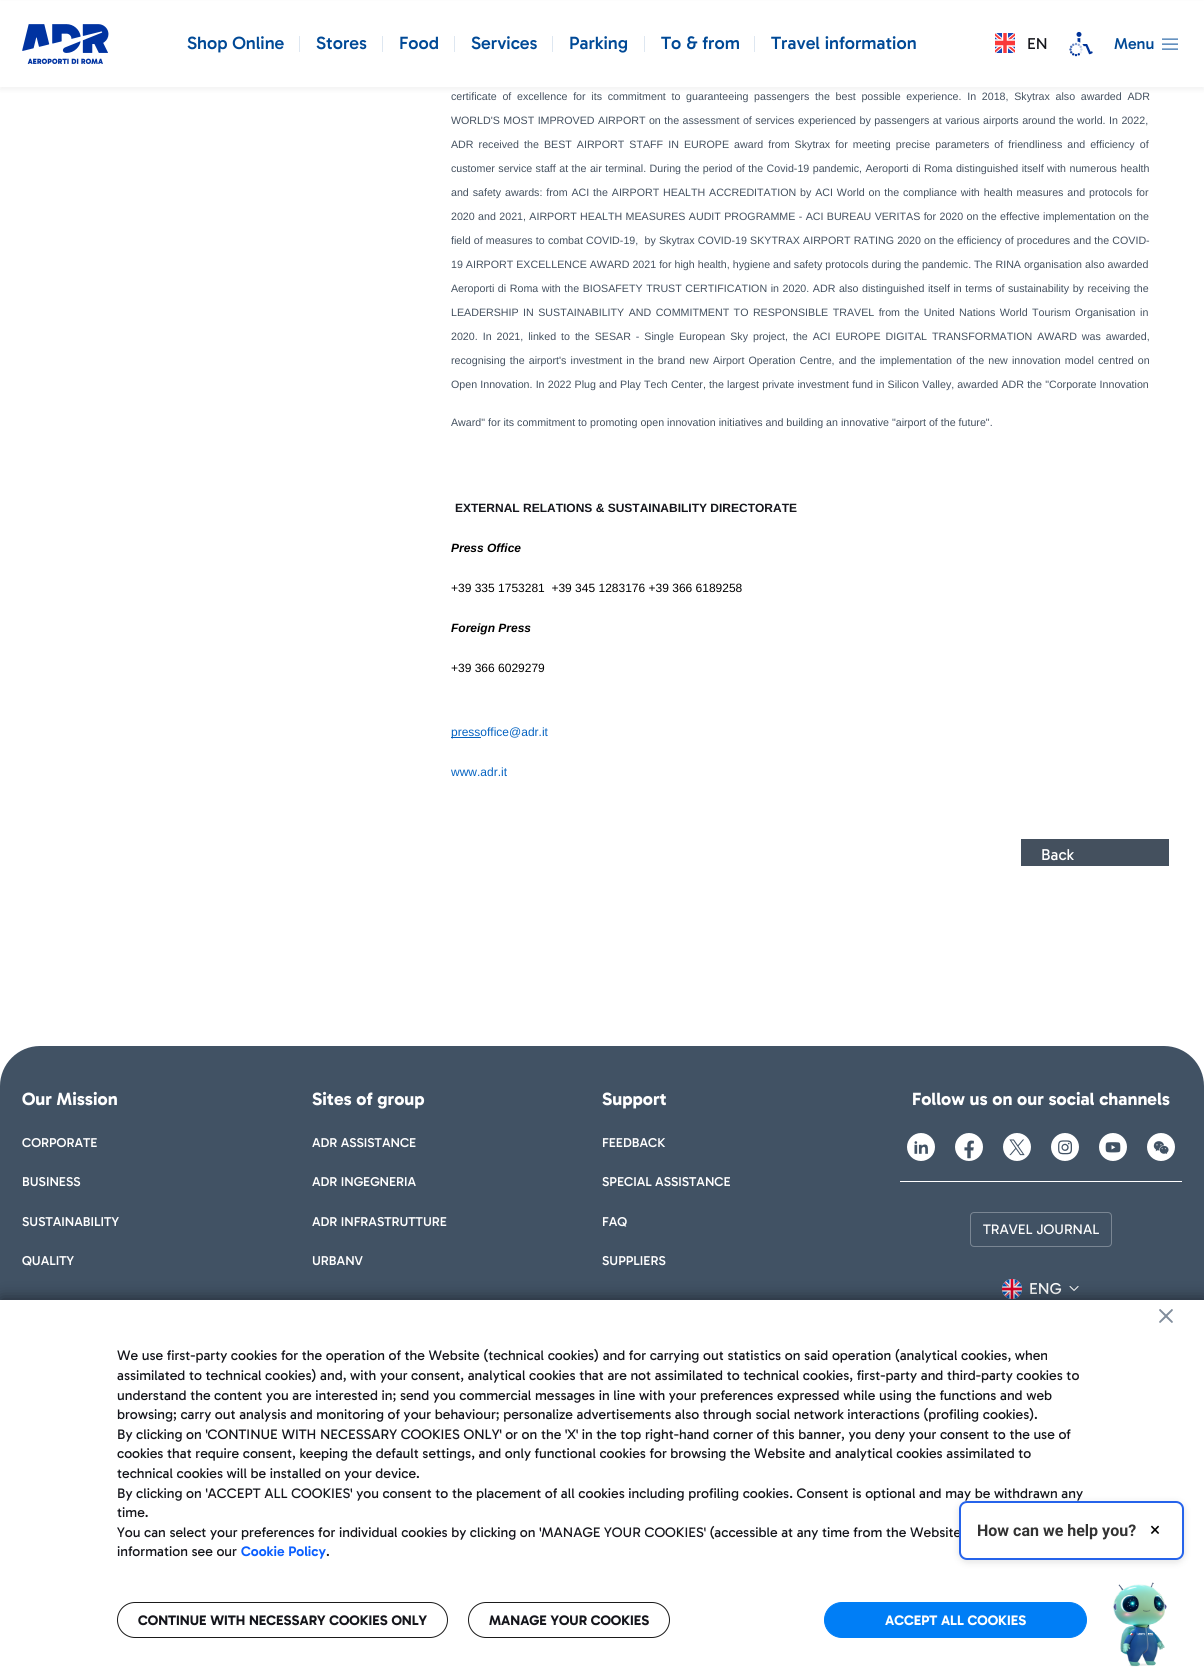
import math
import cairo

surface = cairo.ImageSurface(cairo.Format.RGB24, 1204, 1668)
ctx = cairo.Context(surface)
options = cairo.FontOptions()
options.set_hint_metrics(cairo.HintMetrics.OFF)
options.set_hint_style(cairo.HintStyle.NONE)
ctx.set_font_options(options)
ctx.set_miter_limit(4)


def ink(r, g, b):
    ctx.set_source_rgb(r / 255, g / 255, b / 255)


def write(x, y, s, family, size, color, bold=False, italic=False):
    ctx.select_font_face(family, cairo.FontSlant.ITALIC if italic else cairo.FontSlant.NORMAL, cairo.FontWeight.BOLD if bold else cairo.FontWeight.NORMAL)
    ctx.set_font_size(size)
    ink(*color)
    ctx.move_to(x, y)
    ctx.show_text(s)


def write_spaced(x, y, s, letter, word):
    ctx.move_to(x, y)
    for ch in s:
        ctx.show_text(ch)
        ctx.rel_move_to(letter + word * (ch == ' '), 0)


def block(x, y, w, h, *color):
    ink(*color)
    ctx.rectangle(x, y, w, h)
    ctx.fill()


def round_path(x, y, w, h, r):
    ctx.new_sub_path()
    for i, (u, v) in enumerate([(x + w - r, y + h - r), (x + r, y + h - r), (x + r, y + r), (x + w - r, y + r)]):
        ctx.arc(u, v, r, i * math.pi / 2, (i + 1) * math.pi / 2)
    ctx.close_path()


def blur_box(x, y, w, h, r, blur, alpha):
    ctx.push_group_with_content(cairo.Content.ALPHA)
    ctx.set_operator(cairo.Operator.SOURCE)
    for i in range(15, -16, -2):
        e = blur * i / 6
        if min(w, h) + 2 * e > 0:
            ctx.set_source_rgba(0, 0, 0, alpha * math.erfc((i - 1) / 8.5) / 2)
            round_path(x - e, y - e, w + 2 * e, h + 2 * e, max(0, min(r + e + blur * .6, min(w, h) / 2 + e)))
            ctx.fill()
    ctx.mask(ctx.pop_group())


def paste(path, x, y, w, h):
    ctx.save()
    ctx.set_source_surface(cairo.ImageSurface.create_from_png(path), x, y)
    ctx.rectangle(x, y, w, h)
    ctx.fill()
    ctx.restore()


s1 = dict(family="Gabarito Medium", size=18, color=(0, 73, 150))
s2 = dict(family="Gabarito", size=16, color=(21, 22, 28))
s3 = dict(family="Gabarito Medium", size=16, color=(0, 73, 150))
s4 = dict(family="Liberation Sans", size=10.67, color=(68, 81, 96))
s5 = dict(family="Liberation Sans", size=12, color=(21, 22, 28), bold=True)
s6 = dict(family="Liberation Sans", size=12, color=(0, 0, 0), bold=True, italic=True)
s7 = dict(family="Liberation Sans", size=12, color=(0, 0, 0))
s8 = dict(family="Liberation Sans", size=12, color=(5, 99, 193))
s9 = dict(family="Gabarito", size=16, color=(255, 255, 255))
s10 = dict(family="Gabarito", size=18, color=(255, 255, 255), bold=True)
s11 = dict(family="Gabarito Medium", size=13, color=(255, 255, 255))
s12 = dict(family="Gabarito", size=14, color=(255, 255, 255))
s13 = dict(family="Gabarito", size=14, color=(21, 22, 28))
s14 = dict(family="Gabarito SemiBold", size=14, color=(11, 95, 255))
s15 = dict(family="Gabarito", size=14, color=(21, 22, 28), bold=True)
s16 = dict(family="Gabarito", size=14, color=(255, 255, 255), bold=True)
s17 = dict(family="Roboto", size=16, color=(51, 51, 51), bold=True)
s18 = dict(family="Roboto", size=19, color=(0, 0, 0))

ink(255, 255, 255)
ctx.paint()
ink(0, 0, 0)
blur_box(0, 3, 1204, 87, 0, 2, 0.05)
block(0, 1, 1204, 86, 255, 255, 255)
paste("pic1.png", 22, 24, 87, 40)
write(187, 49, "Shop Online", **s1)
block(299, 36, 1, 16, 222, 231, 241)
write(316, 49, "Stores", **s1)
block(382, 36, 1, 16, 222, 231, 241)
write(399, 49, "Food", **s1)
block(454, 36, 1, 16, 222, 231, 241)
write(471, 49, "Services", **s1)
block(552, 36, 1, 16, 222, 231, 241)
write(569, 49, "Parking", **s1)
block(644, 36, 1, 16, 222, 231, 241)
ctx.save()
ctx.rectangle(661, 30, 78, 27)
ctx.clip()
write(661, 49, "To & from", **s1)
ctx.restore()
block(754, 36, 1, 16, 222, 231, 241)
write(771, 49, "Travel information", **s1)
paste("pic2.png", 995, 33, 20, 20)
write(1027, 49, "EN", **s2)
paste("pic3.png", 1069, 31, 24, 26)
write(1114, 49, "Menu", **s3)
paste("pic4.png", 1162, 38, 16, 12)
ctx.select_font_face("Liberation Sans")
ctx.set_font_size(10.67)
ink(68, 81, 96)
write_spaced(451, 100, "certificate of excellence for its commitment to guaranteeing passengers the best possible experience. In 2018, Skytrax also awarded ADR", 0, 2.75)
write_spaced(451, 124, "WORLD'S MOST IMPROVED AIRPORT on the assessment of services experienced by passengers at various airports around the world. In 2022,", 0, 0.5)
write_spaced(451, 148, "ADR received the BEST AIRPORT STAFF IN EUROPE award from Skytrax for meeting precise parameters of friendliness and efficiency of", 0, 2.1)
write_spaced(451, 172, "customer service staff at the air terminal. During the period of the Covid-19 pandemic, Aeroporti di Roma distinguished itself with numerous health", 0, 0.5)
write_spaced(451, 196, "and safety awards: from ACI the AIRPORT HEALTH ACCREDITATION by ACI World on the compliance with health measures and protocols for", 0, 0.9)
write_spaced(451, 220, "2020 and 2021, AIRPORT HEALTH MEASURES AUDIT PROGRAMME - ACI BUREAU VERITAS for 2020 on the effective implementation on the", 0, 0.4)
write_spaced(451, 244, "field of measures to combat COVID-19,  by Skytrax COVID-19 SKYTRAX AIRPORT RATING 2020 on the efficiency of procedures and the COVID-", 0, 0.2)
write(451, 268, "19 AIRPORT EXCELLENCE AWARD 2021 for high health, hygiene and safety protocols during the pandemic. The RINA organisation also awarded", **s4)
write_spaced(451, 292, "Aeroporti di Roma with the BIOSAFETY TRUST CERTIFICATION in 2020. ADR also distinguished itself in terms of sustainability by receiving the", 0, 0.6)
write_spaced(451, 316, "LEADERSHIP IN SUSTAINABILITY AND COMMITMENT TO RESPONSIBLE TRAVEL from the United Nations World Tourism Organisation in", 0, 1.5)
write_spaced(451, 340, "2020. In 2021, linked to the SESAR - Single European Sky project, the ACI EUROPE DIGITAL TRANSFORMATION AWARD was awarded,", 0, 2)
write_spaced(451, 364, "recognising the airport's investment in the brand new Airport Operation Centre, and the implementation of the new innovation model centred on", 0, 1.2)
write_spaced(451, 388, "Open Innovation. In 2022 Plug and Play Tech Center, the largest private investment fund in Silicon Valley, awarded ADR the \"Corporate Innovation", 0, 0.2)
write(451, 426, "Award\" for its commitment to promoting open innovation initiatives and building an innovative \"airport of the future\".", **s4)
write(455, 512, "EXTERNAL RELATIONS & SUSTAINABILITY DIRECTORATE", **s5)
write(451, 552, "Press Office", **s6)
write(451, 592, "+39 335 1753281  +39 345 1283176 +39 366 6189258", **s7)
write(451, 632, "Foreign Press", **s6)
write(451, 672, "+39 366 6029279", **s7)
block(451, 737, 30, 1, 5, 99, 193)
write(451, 736, "pressoffice@adr.it", **s8)
write(451, 776, "www.adr.it", **s8)
block(1021, 839, 148, 27, 68, 80, 94)
write(1041, 860, "Back", **s9)
ink(65, 82, 100)
ctx.new_path()
ctx.move_to(40, 1046)
ctx.line_to(1164, 1046)
ctx.curve_to(1186, 1046, 1204, 1064, 1204, 1086)
ctx.line_to(1204, 1435)
ctx.line_to(0, 1435)
ctx.line_to(0, 1086)
ctx.curve_to(0, 1064, 18, 1046, 40, 1046)
ctx.close_path()
ctx.fill()
write(22, 1105, "Our Mission", **s10)
write(22, 1147, "CORPORATE", **s11)
write(22, 1186, "BUSINESS", **s11)
write(22, 1226, "SUSTAINABILITY", **s11)
write(22, 1265, "QUALITY", **s11)
write(312, 1105, "Sites of group", **s10)
write(312, 1147, "ADR ASSISTANCE", **s11)
write(312, 1186, "ADR INGEGNERIA", **s11)
write(312, 1226, "ADR INFRASTRUTTURE", **s11)
write(312, 1265, "URBANV", **s11)
write(602, 1105, "Support", **s10)
write(602, 1147, "FEEDBACK", **s11)
write(602, 1186, "SPECIAL ASSISTANCE", **s11)
write(602, 1226, "FAQ", **s11)
write(602, 1265, "SUPPLIERS", **s11)
block(900, 1181, 282, 1, 255, 255, 255)
write(912, 1105, "Follow us on our social channels", **s10)
ctx.new_path()
ctx.arc(921, 1147, 14, 0, 2 * math.pi)
ctx.fill()
paste("pic5.png", 914, 1141, 14, 13)
ctx.arc(969, 1147, 14, 0, 2 * math.pi)
ctx.fill()
paste("pic6.png", 964, 1140, 10, 19)
ctx.arc(1017, 1147, 14, 0, 2 * math.pi)
ctx.fill()
paste("pic7.png", 1009, 1139, 16, 17)
ctx.arc(1065, 1147, 14, 0, 2 * math.pi)
ctx.fill()
paste("pic8.png", 1058, 1140, 14, 15)
ctx.arc(1113, 1147, 14, 0, 2 * math.pi)
ctx.fill()
paste("pic9.png", 1105, 1142, 16, 11)
ctx.arc(1161, 1147, 14, 0, 2 * math.pi)
ctx.fill()
paste("pic10.png", 1153, 1141, 16, 13)
round_path(970.5, 1212.5, 141, 34, 3.5)
ink(122, 134, 147)
ctx.set_line_width(1)
ctx.stroke()
write(983, 1234, "TRAVEL JOURNAL", **s12)
paste("pic11.png", 1002, 1279, 20, 20)
write(1029, 1294, "ENG", **s9)
paste("pic12.png", 1069, 1286, 10, 5)
ink(0, 0, 0)
blur_box(1, 1299, 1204, 368, 0, 8, 0.5)
block(0, 1300, 1204, 368, 255, 255, 255)
paste("pic13.png", 1159, 1309, 14, 14)
write(117, 1360, "We use first-party cookies for the operation of the Website (technical cookies) and for carrying out statistics on said operation (analytical cookies, when", **s13)
write(117, 1380, "assimilated to technical cookies) and, with your consent, analytical cookies that are not assimilated to technical cookies, first-party and third-party cookies to", **s13)
write(117, 1400, "understand the content you are interested in; send you commercial messages in line with your preferences expressed while using the functions and web", **s13)
write(117, 1419, "browsing; carry out analysis and monitoring of your behaviour; personalize advertisements also through social network interactions (profiling cookies).", **s13)
write(117, 1439, "By clicking on 'CONTINUE WITH NECESSARY COOKIES ONLY' or on the 'X' in the top right-hand corner of this banner, you deny your consent to the use of", **s13)
write(117, 1458, "cookies that require consent, keeping the default settings, and only functional cookies for browsing the Website and analytical cookies assimilated to", **s13)
write(117, 1478, "technical cookies will be installed on your device.", **s13)
write(117, 1498, "By clicking on 'ACCEPT ALL COOKIES' you consent to the placement of all cookies including profiling cookies. Consent is optional and may be withdrawn any", **s13)
write(117, 1517, "time.", **s13)
write(117, 1537, "You can select your preferences for individual cookies by clicking on 'MANAGE YOUR COOKIES' (accessible at any time from the Website", **s13)
write(117, 1556, "information see our", **s13)
write(241, 1556, "Cookie Policy", **s14)
write(326, 1556, ".", **s13)
round_path(117.5, 1602.5, 330, 35, 17.5)
ink(26, 26, 26)
ctx.stroke()
write(138, 1625, "CONTINUE WITH NECESSARY COOKIES ONLY", **s15)
round_path(468.5, 1602.5, 201, 35, 17.5)
ink(26, 26, 26)
ctx.stroke()
write(489, 1625, "MANAGE YOUR COOKIES", **s15)
ink(0, 126, 246)
round_path(824.5, 1602.5, 262, 35, 17.5)
ctx.fill_preserve()
ctx.stroke()
write(885, 1625, "ACCEPT ALL COOKIES", **s16)
ink(0, 0, 0)
blur_box(959, 1503, 225, 59, 8, 4, 0.12)
ink(255, 255, 255)
round_path(960, 1502, 223, 57, 7)
ctx.fill_preserve()
ink(37, 99, 235)
ctx.set_line_width(2)
ctx.stroke()
write(977, 1536, "How can we help you?", **s17)
write(1150, 1536, "×", **s18)
paste("pic14.png", 1113, 1582, 54, 85)
surface.write_to_png("screenshot.png")
